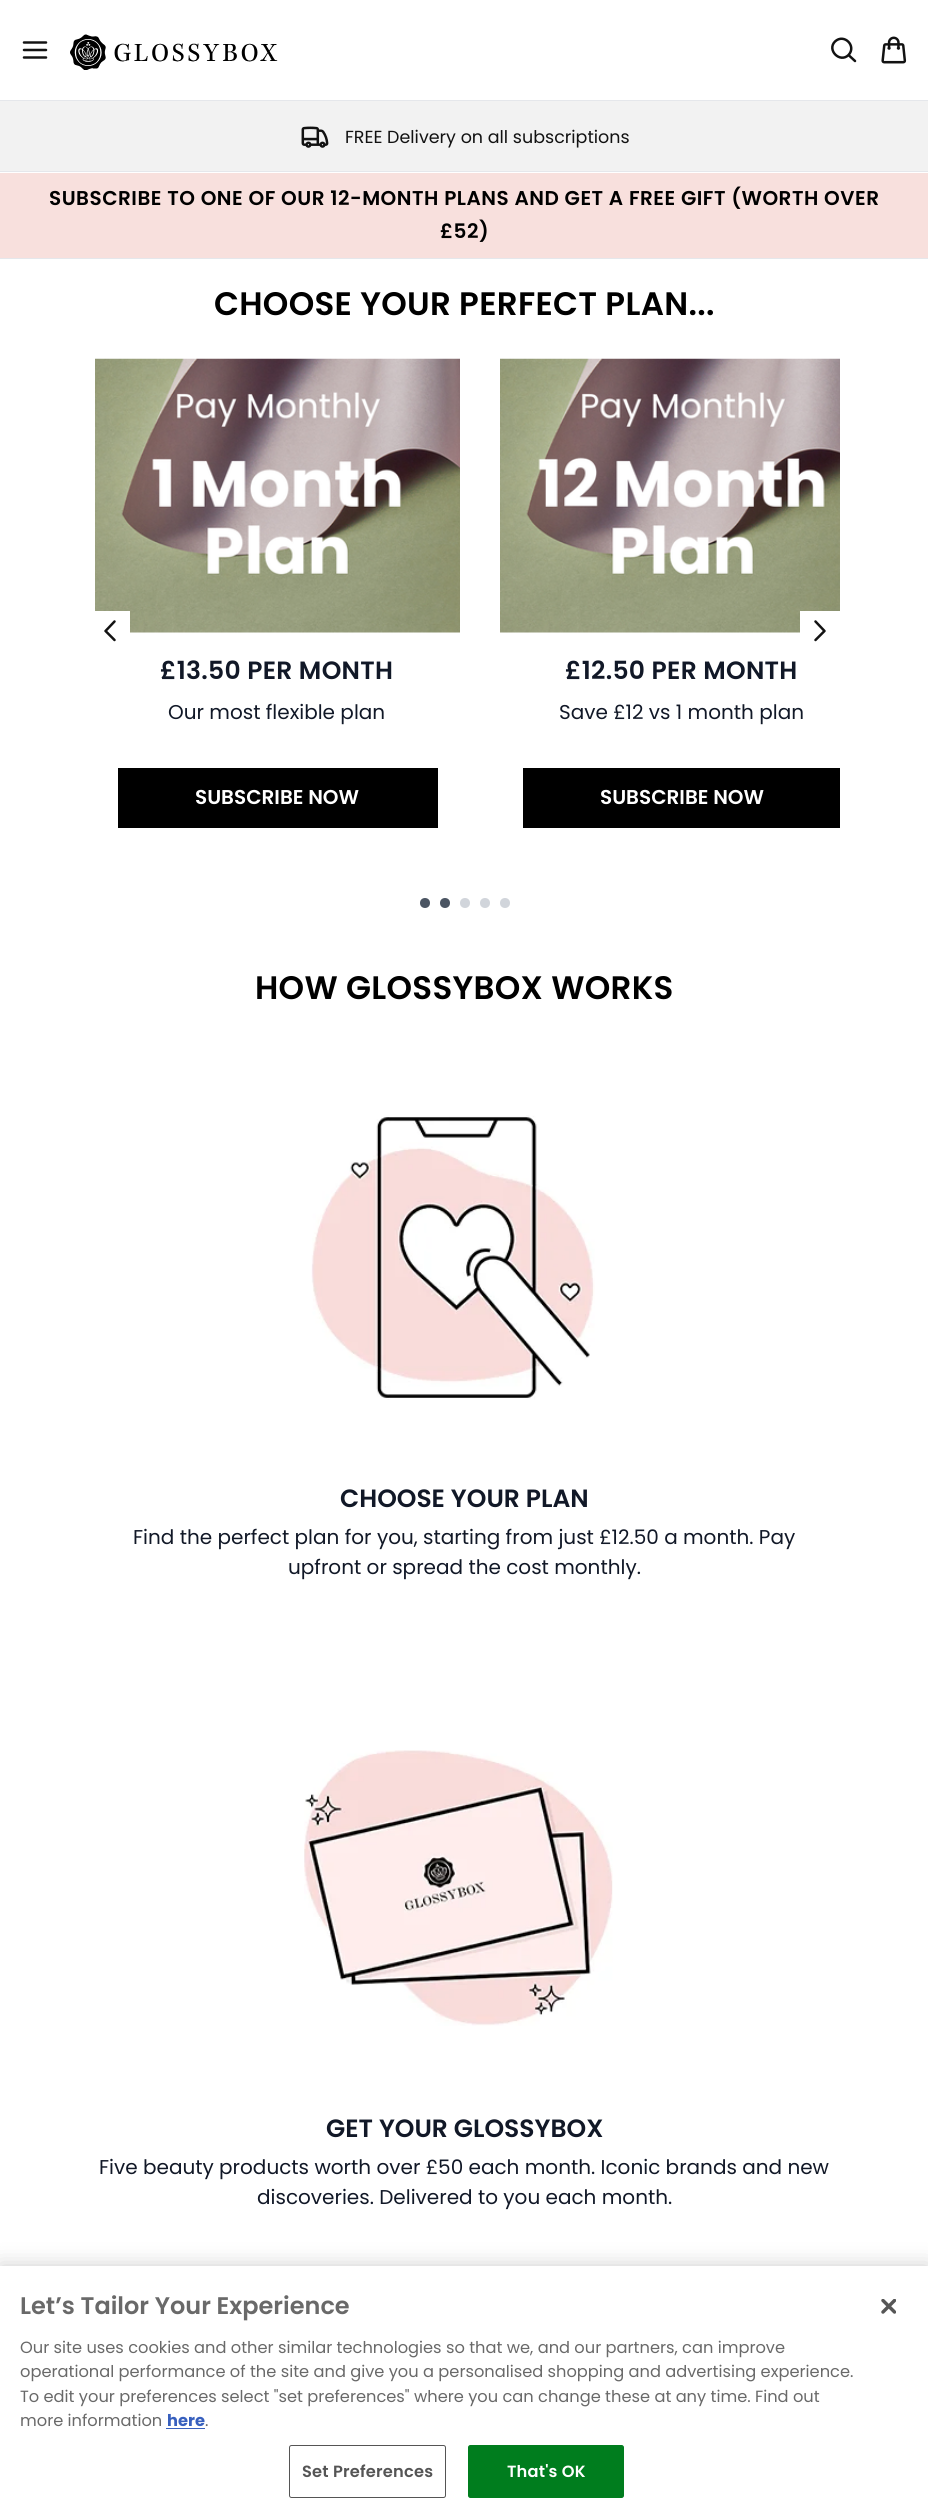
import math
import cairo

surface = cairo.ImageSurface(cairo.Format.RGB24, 928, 2517)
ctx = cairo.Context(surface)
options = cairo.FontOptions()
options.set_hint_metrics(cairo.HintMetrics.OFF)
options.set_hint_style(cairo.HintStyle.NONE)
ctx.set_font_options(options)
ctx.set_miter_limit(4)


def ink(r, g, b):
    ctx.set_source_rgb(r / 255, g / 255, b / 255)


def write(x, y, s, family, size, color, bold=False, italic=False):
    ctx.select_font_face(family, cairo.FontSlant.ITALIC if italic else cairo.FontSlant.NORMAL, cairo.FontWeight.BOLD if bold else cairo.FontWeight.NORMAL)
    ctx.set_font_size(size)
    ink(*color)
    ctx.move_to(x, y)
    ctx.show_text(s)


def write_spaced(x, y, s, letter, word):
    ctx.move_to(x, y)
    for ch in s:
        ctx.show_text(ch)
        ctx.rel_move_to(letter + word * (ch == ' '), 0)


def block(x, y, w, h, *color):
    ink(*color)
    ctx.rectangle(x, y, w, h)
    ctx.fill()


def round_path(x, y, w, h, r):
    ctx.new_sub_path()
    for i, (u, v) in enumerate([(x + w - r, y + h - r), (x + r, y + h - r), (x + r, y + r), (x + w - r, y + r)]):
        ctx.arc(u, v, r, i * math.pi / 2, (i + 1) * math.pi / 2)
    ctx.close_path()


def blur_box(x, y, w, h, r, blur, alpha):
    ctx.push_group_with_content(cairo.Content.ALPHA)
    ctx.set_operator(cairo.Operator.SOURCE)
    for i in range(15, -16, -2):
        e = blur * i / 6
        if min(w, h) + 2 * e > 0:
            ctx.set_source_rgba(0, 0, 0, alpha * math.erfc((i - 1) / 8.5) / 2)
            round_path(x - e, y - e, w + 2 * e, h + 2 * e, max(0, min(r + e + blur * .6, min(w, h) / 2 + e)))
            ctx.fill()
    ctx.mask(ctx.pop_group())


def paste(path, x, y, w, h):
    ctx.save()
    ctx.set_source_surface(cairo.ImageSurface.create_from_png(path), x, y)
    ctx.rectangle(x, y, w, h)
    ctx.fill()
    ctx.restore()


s1 = dict(family="Poppins", size=17.5, color=(18, 18, 18))
s2 = dict(family="Poppins", size=20, color=(17, 24, 39))
s3 = dict(family="Poppins SemiBold", size=20, color=(255, 255, 255))
s4 = dict(family="Poppins SemiBold", size=25, color=(17, 24, 39))
s5 = dict(family="Poppins SemiBold", size=24, color=(105, 105, 105))
s6 = dict(family="Poppins", size=16.25, color=(105, 105, 105))
s7 = dict(family="Poppins", size=16.25, color=(56, 96, 190), bold=True)

ink(255, 255, 255)
ctx.paint()
ctx.new_path()
ctx.move_to(24, 50)
ctx.line_to(46, 50)
ctx.move_to(24, 42.5)
ctx.line_to(46, 42.5)
ctx.move_to(24, 57.5)
ctx.line_to(46, 57.5)
ink(18, 18, 18)
ctx.set_line_width(2.5)
ctx.set_line_cap(cairo.LineCap.ROUND)
ctx.set_line_join(cairo.LineJoin.ROUND)
ctx.stroke()
paste("pic1.png", 70, 34, 208, 36)
ctx.new_path()
ctx.move_to(855, 61)
ctx.line_to(848.5, 55)
ctx.move_to(848.5, 55)
ctx.curve_to(857, 46, 844, 33, 835, 41.5)
ctx.curve_to(826.5, 50, 840, 63.5, 848.5, 55)
ctx.close_path()
ctx.stroke()
paste("pic2.png", 881, 36, 26, 28)
block(0, 101, 928, 70, 242, 242, 242)
block(0, 100, 928, 1, 229, 231, 235)
paste("pic3.png", 301, 126, 28, 22)
write(345, 143, "FREE Delivery on all subscriptions", **s1)
block(0, 173, 928, 85, 248, 224, 221)
block(0, 171, 928, 1, 229, 231, 235)
block(0, 258, 928, 1, 229, 231, 235)
ctx.select_font_face("Poppins SemiBold")
ctx.set_font_size(20)
ink(0, 0, 0)
write_spaced(49, 205, "SUBSCRIBE TO ONE OF OUR 12-MONTH PLANS AND GET A FREE GIFT (WORTH OVER", 0.5, 0)
write_spaced(440, 238, "£52)", 0.5, 0)
ctx.set_font_size(32.5)
write_spaced(214, 315, "CHOOSE YOUR PERFECT PLAN...", 0.3, 0)
paste("pic4.png", 95, 358, 365, 275)
block(95, 611, 35, 22, 255, 255, 255)
ctx.new_path()
ctx.move_to(114.5, 640)
ctx.line_to(105.5, 631)
ctx.line_to(114.5, 621.5)
ink(18, 18, 18)
ctx.stroke()
paste("pic5.png", 500, 358, 340, 275)
block(800, 611, 40, 22, 255, 255, 255)
ctx.new_path()
ctx.move_to(815.5, 621.5)
ctx.line_to(824.5, 631)
ctx.line_to(815.5, 640)
ink(18, 18, 18)
ctx.stroke()
ctx.set_font_size(25)
ink(17, 24, 39)
write_spaced(160, 679, "£13.50 PER MONTH", 0.3, 0)
write(168, 719, "Our most flexible plan", **s2)
block(118, 768, 320, 60, 0, 0, 0)
write(195, 804, "SUBSCRIBE NOW", **s3)
ctx.set_font_size(25)
ink(17, 24, 39)
write_spaced(565, 679, "£12.50 PER MONTH", 0.3, 0)
write(559, 719, "Save £12 vs 1 month plan", **s2)
block(523, 768, 317, 60, 0, 0, 0)
write(600, 804, "SUBSCRIBE NOW", **s3)
ink(75, 85, 99)
ctx.new_path()
ctx.arc(425, 903, 5, 0, 2 * math.pi)
ctx.fill()
ctx.arc(445, 903, 5, 0, 2 * math.pi)
ctx.fill()
ink(209, 213, 219)
ctx.arc(465, 903, 5, 0, 2 * math.pi)
ctx.fill()
ctx.arc(485, 903, 5, 0, 2 * math.pi)
ctx.fill()
ctx.arc(505, 903, 5, 0, 2 * math.pi)
ctx.fill()
ctx.set_font_size(32.5)
ink(0, 0, 0)
write_spaced(255, 999, "HOW GLOSSYBOX WORKS", 0.3, 0)
paste("pic6.png", 311, 1115, 284, 285)
write(340, 1507, "CHOOSE YOUR PLAN", **s4)
write(133, 1544, "Find the perfect plan for you, starting from just £12.50 a month. Pay", **s2)
write(288, 1574, "upfront or spread the cost monthly.", **s2)
paste("pic7.png", 304, 1750, 309, 276)
write(326, 2137, "GET YOUR GLOSSYBOX", **s4)
write(99, 2174, "Five beauty products worth over £50 each month. Iconic brands and new", **s2)
write(257, 2204, "discoveries. Delivered to you each month.", **s2)
ink(0, 0, 0)
blur_box(0, 2266, 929, 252, 0, 11, 0.2)
block(0, 2266, 928, 251, 255, 255, 255)
write(20, 2314, "Let’s Tailor Your Experience", **s5)
write(20, 2353, "Our site uses cookies and other similar technologies so that we, and our partners, can improve", **s6)
write(20, 2377, "operational performance of the site and give you a personalised shopping and advertising experience.", **s6)
write(20, 2402, "To edit your preferences select \"set preferences\" where you can change these at any time. Find out", **s6)
write(20, 2426, "more information", **s6)
write(167, 2426, "here", **s7)
block(166, 2428, 39, 1, 56, 96, 190)
write(205, 2426, ".", **s6)
round_path(289.5, 2445.5, 156, 52, 2)
ink(85, 85, 85)
ctx.set_line_width(1)
ctx.set_line_cap(cairo.LineCap.BUTT)
ctx.set_line_join(cairo.LineJoin.MITER)
ctx.stroke()
ctx.select_font_face("Poppins SemiBold")
write_spaced(302, 2477, "Set Preferences", 0.2, 0)
ink(0, 125, 30)
round_path(468.5, 2445.5, 155, 52, 2)
ctx.fill_preserve()
ctx.stroke()
ink(255, 255, 255)
write_spaced(507, 2477, "That's OK", 0.2, 0)
paste("pic8.png", 881, 2299, 15, 15)
surface.write_to_png("screenshot.png")
